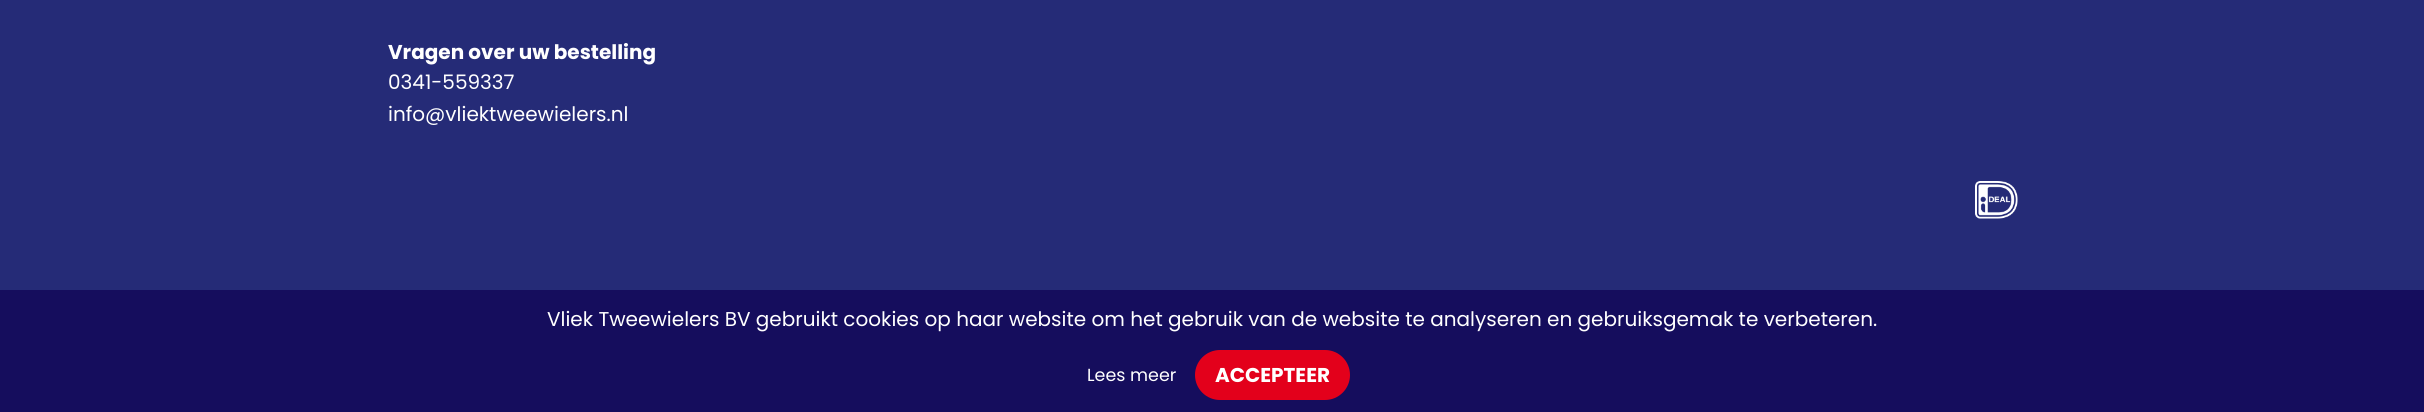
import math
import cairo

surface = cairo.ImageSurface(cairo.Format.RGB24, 2424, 412)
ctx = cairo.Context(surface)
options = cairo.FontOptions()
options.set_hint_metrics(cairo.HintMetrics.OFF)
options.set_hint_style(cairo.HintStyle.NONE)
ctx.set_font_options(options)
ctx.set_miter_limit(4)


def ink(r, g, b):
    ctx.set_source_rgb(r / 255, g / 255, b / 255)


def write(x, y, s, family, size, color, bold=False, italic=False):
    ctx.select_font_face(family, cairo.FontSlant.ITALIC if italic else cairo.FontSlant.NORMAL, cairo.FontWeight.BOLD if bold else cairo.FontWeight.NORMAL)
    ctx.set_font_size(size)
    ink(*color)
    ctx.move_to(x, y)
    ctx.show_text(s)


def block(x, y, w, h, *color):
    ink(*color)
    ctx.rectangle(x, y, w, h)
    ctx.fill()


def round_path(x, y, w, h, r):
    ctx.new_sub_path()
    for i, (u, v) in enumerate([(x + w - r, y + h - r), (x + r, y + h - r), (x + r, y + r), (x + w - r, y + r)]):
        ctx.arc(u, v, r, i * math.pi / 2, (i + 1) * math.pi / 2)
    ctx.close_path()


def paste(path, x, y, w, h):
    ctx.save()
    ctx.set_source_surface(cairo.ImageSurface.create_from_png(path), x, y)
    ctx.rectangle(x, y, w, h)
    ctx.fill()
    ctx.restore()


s1 = dict(family="Poppins", size=20, color=(255, 255, 255), bold=True)
s2 = dict(family="Poppins", size=20, color=(255, 255, 255))
s3 = dict(family="Poppins", size=17.5, color=(255, 255, 255))

ink(37, 43, 119)
ctx.paint()
write(388, 59, "Vragen over uw bestelling", **s1)
write(388, 89, "0341-559337", **s2)
write(388, 121, "info@vliektweewielers.nl", **s2)
paste("pic1.png", 1975, 181, 43, 38)
block(0, 290, 2424, 122, 21, 13, 93)
write(547, 326, "Vliek Tweewielers BV gebruikt cookies op haar website om het gebruik van de website te analyseren en gebruiksgemak te verbeteren.", **s2)
write(1087, 381, "Lees meer", **s3)
ink(227, 0, 27)
round_path(1195, 350, 155, 50, 25)
ctx.fill()
write(1215, 382, "ACCEPTEER", **s1)
surface.write_to_png("screenshot.png")
